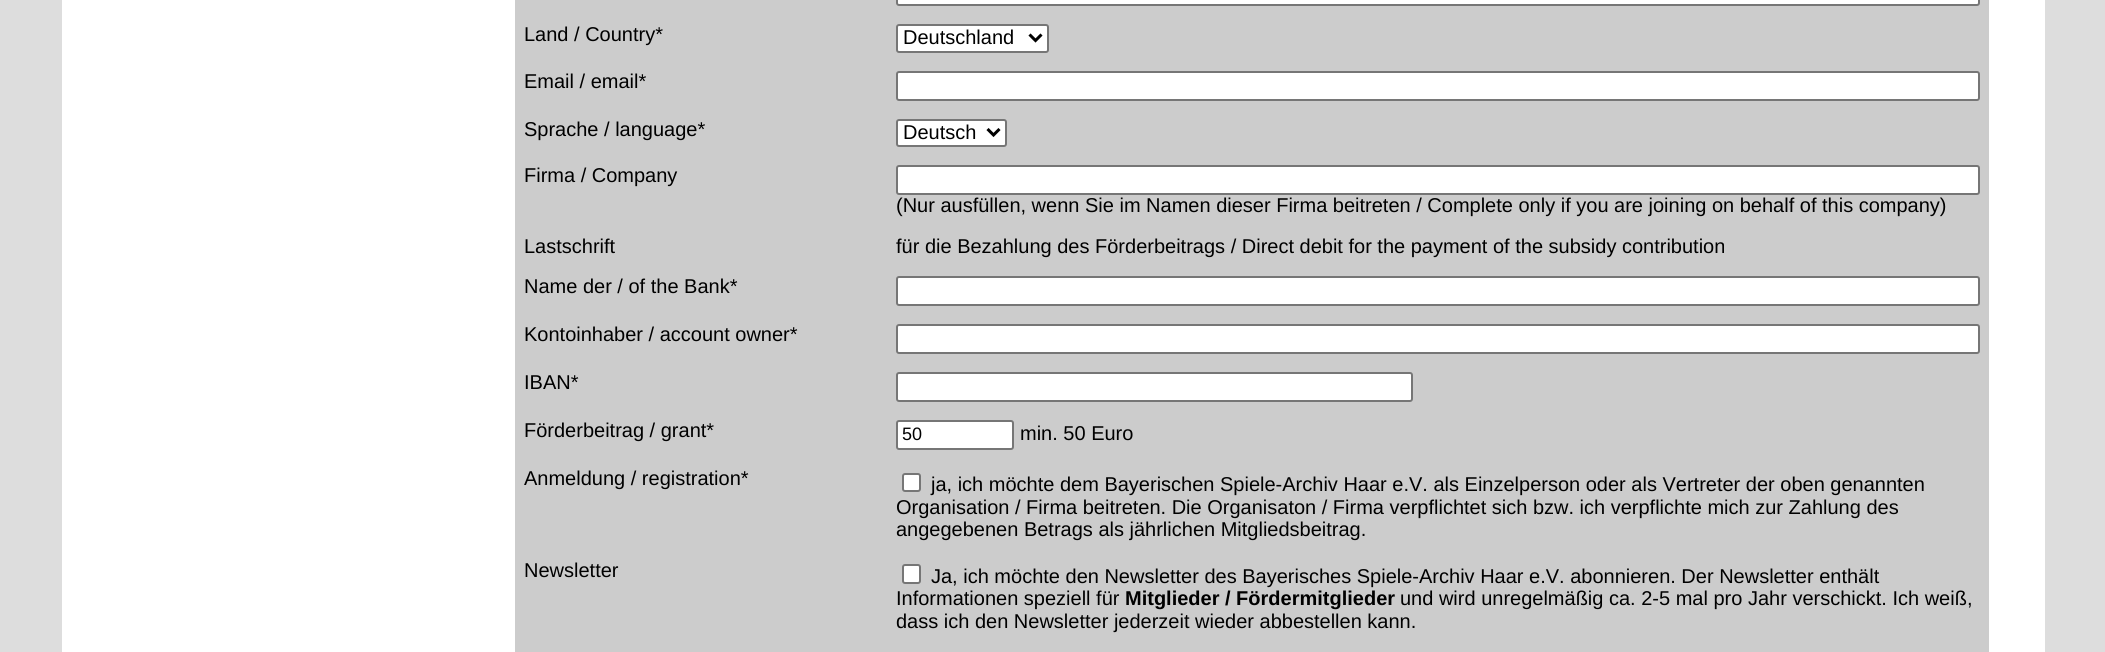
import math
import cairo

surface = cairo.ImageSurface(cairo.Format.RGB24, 2105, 652)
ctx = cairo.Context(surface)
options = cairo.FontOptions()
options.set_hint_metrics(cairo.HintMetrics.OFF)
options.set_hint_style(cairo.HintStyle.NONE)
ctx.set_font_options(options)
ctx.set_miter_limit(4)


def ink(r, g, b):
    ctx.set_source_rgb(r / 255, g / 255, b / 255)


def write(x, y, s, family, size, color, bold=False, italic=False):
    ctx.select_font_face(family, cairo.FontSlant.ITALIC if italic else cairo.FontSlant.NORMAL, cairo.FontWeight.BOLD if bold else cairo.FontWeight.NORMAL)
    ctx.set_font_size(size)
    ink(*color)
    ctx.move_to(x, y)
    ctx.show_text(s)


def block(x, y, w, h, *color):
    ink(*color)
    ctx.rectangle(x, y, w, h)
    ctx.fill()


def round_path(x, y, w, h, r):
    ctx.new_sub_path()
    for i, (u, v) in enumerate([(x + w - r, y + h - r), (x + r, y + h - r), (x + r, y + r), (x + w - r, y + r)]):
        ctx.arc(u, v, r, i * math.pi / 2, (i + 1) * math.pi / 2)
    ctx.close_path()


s1 = dict(family="Liberation Sans", size=20, color=(0, 0, 0))
s2 = dict(family="Liberation Sans", size=18, color=(0, 0, 0))
s3 = dict(family="Liberation Sans", size=20, color=(0, 0, 0), bold=True)

ink(221, 221, 221)
ctx.paint()
block(62, 0, 1983, 652, 255, 255, 255)
block(515, 0, 1474, 15, 204, 204, 204)
ink(255, 255, 255)
round_path(897, -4, 1082, 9, 2)
ctx.fill_preserve()
ink(118, 118, 118)
ctx.stroke()
block(515, 15, 1474, 47, 204, 204, 204)
write(524, 41, "Land / Country*", **s1)
ink(255, 255, 255)
round_path(897, 25, 151, 27, 2)
ctx.fill_preserve()
ink(118, 118, 118)
ctx.stroke()
ctx.new_path()
ctx.move_to(1029.5, 34.5)
ctx.line_to(1035.5, 40.5)
ctx.line_to(1041.5, 34.5)
ink(0, 0, 0)
ctx.set_line_width(3)
ctx.stroke()
write(903, 44, "Deutschland", **s1)
block(515, 62, 1474, 48, 204, 204, 204)
write(524, 88, "Email / email*", **s1)
ink(255, 255, 255)
round_path(897, 72, 1082, 28, 2)
ctx.fill_preserve()
ink(118, 118, 118)
ctx.set_line_width(2)
ctx.stroke()
block(515, 110, 1474, 46, 204, 204, 204)
write(524, 136, "Sprache / language*", **s1)
ink(255, 255, 255)
round_path(897, 120, 109, 26, 2)
ctx.fill_preserve()
ink(118, 118, 118)
ctx.stroke()
ctx.new_path()
ctx.move_to(987.5, 129)
ctx.line_to(993.5, 135)
ctx.line_to(999.5, 129)
ink(0, 0, 0)
ctx.set_line_width(3)
ctx.stroke()
write(903, 139, "Deutsch", **s1)
block(515, 156, 1474, 71, 204, 204, 204)
write(524, 182, "Firma / Company", **s1)
ink(255, 255, 255)
round_path(897, 166, 1082, 28, 2)
ctx.fill_preserve()
ink(118, 118, 118)
ctx.set_line_width(2)
ctx.stroke()
write(896, 212, "(Nur ausfüllen, wenn Sie im Namen dieser Firma beitreten / Complete only if you are joining on behalf of this company)", **s1)
block(515, 227, 1474, 40, 204, 204, 204)
write(524, 253, "Lastschrift", **s1)
write(896, 253, "für die Bezahlung des Förderbeitrags / Direct debit for the payment of the subsidy contribution", **s1)
block(515, 267, 1474, 48, 204, 204, 204)
write(524, 293, "Name der / of the Bank*", **s1)
ink(255, 255, 255)
round_path(897, 277, 1082, 28, 2)
ctx.fill_preserve()
ink(118, 118, 118)
ctx.stroke()
block(515, 315, 1474, 48, 204, 204, 204)
write(524, 341, "Kontoinhaber / account owner*", **s1)
ink(255, 255, 255)
round_path(897, 325, 1082, 28, 2)
ctx.fill_preserve()
ink(118, 118, 118)
ctx.stroke()
block(515, 363, 1474, 48, 204, 204, 204)
write(524, 389, "IBAN*", **s1)
ink(255, 255, 255)
round_path(897, 373, 515, 28, 2)
ctx.fill_preserve()
ink(118, 118, 118)
ctx.stroke()
block(515, 411, 1474, 48, 204, 204, 204)
write(524, 437, "Förderbeitrag / grant*", **s1)
ink(255, 255, 255)
round_path(897, 421, 116, 28, 2)
ctx.fill_preserve()
ink(118, 118, 118)
ctx.stroke()
write(902, 440, "50", **s2)
write(1020, 440, "min. 50 Euro", **s1)
block(515, 459, 1474, 92, 204, 204, 204)
write(524, 485, "Anmeldung / registration*", **s1)
ink(255, 255, 255)
round_path(903, 474, 17, 17, 2)
ctx.fill_preserve()
ink(118, 118, 118)
ctx.stroke()
write(931, 491, "ja, ich möchte dem Bayerischen Spiele-Archiv Haar e.V. als Einzelperson oder als Vertreter der oben genannten", **s1)
write(896, 514, "Organisation / Firma beitreten. Die Organisaton / Firma verpflichtet sich bzw. ich verpflichte mich zur Zahlung des", **s1)
write(896, 536, "angegebenen Betrags als jährlichen Mitgliedsbeitrag.", **s1)
block(515, 551, 1474, 91, 204, 204, 204)
write(524, 577, "Newsletter", **s1)
ink(255, 255, 255)
round_path(903, 565, 17, 18, 2)
ctx.fill_preserve()
ink(118, 118, 118)
ctx.stroke()
write(931, 583, "Ja, ich möchte den Newsletter des Bayerisches Spiele-Archiv Haar e.V. abonnieren. Der Newsletter enthält", **s1)
write(896, 605, "Informationen speziell für", **s1)
write(1125, 605, "Mitglieder / Fördermitglieder", **s3)
write(1400, 605, "und wird unregelmäßig ca. 2-5 mal pro Jahr verschickt. Ich weiß,", **s1)
write(896, 628, "dass ich den Newsletter jederzeit wieder abbestellen kann.", **s1)
block(515, 642, 1474, 10, 204, 204, 204)
surface.write_to_png("screenshot.png")
